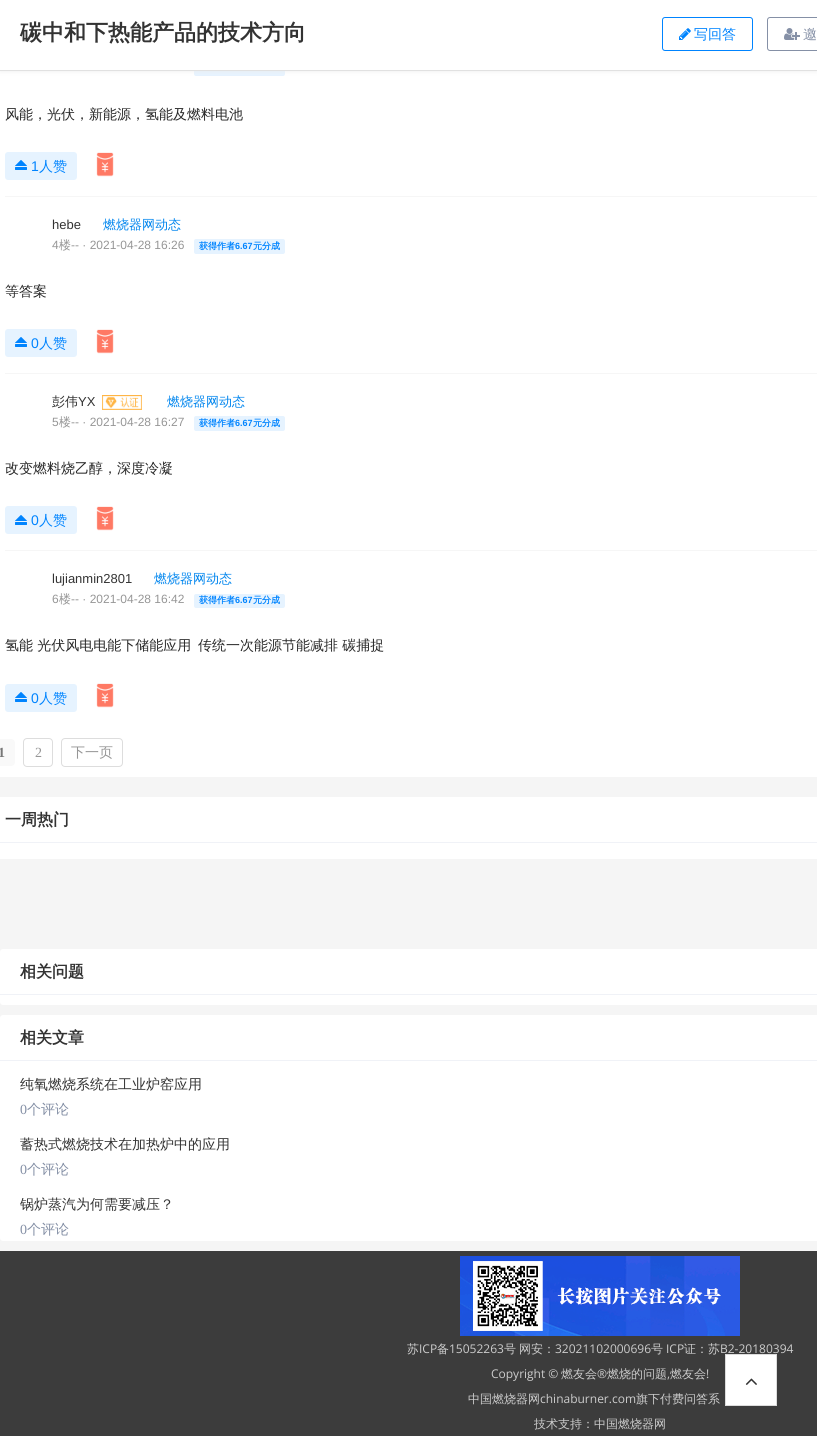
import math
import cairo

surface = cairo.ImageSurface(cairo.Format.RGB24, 817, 1436)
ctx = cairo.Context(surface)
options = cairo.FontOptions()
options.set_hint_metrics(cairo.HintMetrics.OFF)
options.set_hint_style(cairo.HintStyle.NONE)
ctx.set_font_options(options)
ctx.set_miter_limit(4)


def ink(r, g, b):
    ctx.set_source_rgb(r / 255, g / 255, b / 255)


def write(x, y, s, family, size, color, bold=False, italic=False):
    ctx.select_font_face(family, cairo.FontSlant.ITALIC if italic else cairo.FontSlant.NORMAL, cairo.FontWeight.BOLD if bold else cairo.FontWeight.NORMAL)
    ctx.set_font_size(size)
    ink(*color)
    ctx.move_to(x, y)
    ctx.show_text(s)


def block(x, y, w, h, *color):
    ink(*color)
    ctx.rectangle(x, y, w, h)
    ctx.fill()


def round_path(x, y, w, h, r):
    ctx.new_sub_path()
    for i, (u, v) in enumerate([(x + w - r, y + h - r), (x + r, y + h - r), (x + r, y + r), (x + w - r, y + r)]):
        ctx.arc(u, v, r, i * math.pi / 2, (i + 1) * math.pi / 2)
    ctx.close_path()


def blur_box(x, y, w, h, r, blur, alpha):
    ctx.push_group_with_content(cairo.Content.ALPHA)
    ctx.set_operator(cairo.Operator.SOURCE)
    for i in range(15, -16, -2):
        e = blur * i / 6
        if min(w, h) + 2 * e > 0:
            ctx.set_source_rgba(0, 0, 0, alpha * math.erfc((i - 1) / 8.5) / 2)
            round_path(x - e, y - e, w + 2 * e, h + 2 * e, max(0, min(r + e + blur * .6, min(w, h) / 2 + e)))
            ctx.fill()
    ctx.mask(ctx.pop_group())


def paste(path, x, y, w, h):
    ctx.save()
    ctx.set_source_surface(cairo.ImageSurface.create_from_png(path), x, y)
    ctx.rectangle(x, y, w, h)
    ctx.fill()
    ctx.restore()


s1 = dict(family="WenQuanYi Zen Hei", size=22, color=(51, 51, 51), bold=True)
s2 = dict(family="WenQuanYi Zen Hei Medium", size=14, color=(0, 132, 255))
s3 = dict(family="WenQuanYi Zen Hei Medium", size=14, color=(133, 144, 166))
s4 = dict(family="WenQuanYi Zen Hei Medium", size=14, color=(40, 40, 40))
s5 = dict(family="Liberation Sans", size=14, color=(0, 132, 255))
s6 = dict(family="Liberation Sans", size=13, color=(51, 51, 51))
s7 = dict(family="WenQuanYi Zen Hei Medium", size=13, color=(0, 133, 238))
s8 = dict(family="Liberation Sans", size=12, color=(150, 150, 150))
s9 = dict(family="WenQuanYi Zen Hei Medium", size=12, color=(150, 150, 150))
s10 = dict(family="WenQuanYi Zen Hei", size=9, color=(0, 132, 255), bold=True)
s11 = dict(family="Liberation Sans", size=9, color=(0, 132, 255), bold=True)
s12 = dict(family="WenQuanYi Zen Hei Medium", size=13, color=(51, 51, 51))
s13 = dict(family="Liberation Serif", size=14, color=(119, 119, 119), bold=True)
s14 = dict(family="Liberation Serif", size=14, color=(150, 150, 150))
s15 = dict(family="WenQuanYi Zen Hei Medium", size=14, color=(150, 150, 150))
s16 = dict(family="WenQuanYi Zen Hei", size=16, color=(51, 51, 51), bold=True)
s17 = dict(family="WenQuanYi Zen Hei Medium", size=14, color=(51, 51, 51))
s18 = dict(family="Liberation Serif", size=14, color=(133, 144, 166))
s19 = dict(family="WenQuanYi Zen Hei Medium", size=12, color=(204, 204, 204))
s20 = dict(family="Open Sans", size=12, color=(204, 204, 204))

ink(245, 245, 245)
ctx.paint()
block(0, 71, 817, 706, 255, 255, 255)
ink(230, 243, 255)
round_path(194, 62, 91, 14, 2)
ctx.fill()
ink(237, 237, 237)
blur_box(0, 0, 817, 71, 0, 2.5, 1)
block(0, 0, 817, 70, 255, 255, 255)
block(0, 70, 817, 1, 225, 225, 225)
write(20, 40, "碳中和下热能产品的技术方向", **s1)
round_path(662.5, 17.5, 90, 33, 2.5)
ink(0, 132, 255)
ctx.set_line_width(1)
ctx.stroke()
paste("pic1.png", 679, 28, 12, 12)
write(694, 39, "写回答", **s2)
round_path(767.5, 17.5, 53, 33, 2.5)
ink(133, 144, 166)
ctx.stroke()
paste("pic2.png", 784, 28, 16, 12)
write(803, 39, "邀", **s3)
write(5, 119, "风能，光伏，新能源，氢能及燃料电池", **s4)
ink(230, 243, 255)
round_path(5, 152, 72, 28, 3)
ctx.fill()
paste("pic3.png", 15, 160, 12, 10)
write(31, 171, "1", **s5)
write(39, 171, "人赞", **s2)
paste("pic4.png", 96, 152, 18, 25)
block(5, 196, 812, 1, 246, 246, 246)
write(52, 229, "hebe", **s6)
write(103, 229, "燃烧器网动态", **s7)
write(52, 249, "4", **s8)
write(59, 249, "楼", **s9)
write(71, 249, "-- · 2021-04-28 16:26", **s8)
ink(230, 243, 255)
round_path(194, 239, 91, 15, 2)
ctx.fill()
write(199, 249, "获得作者", **s10)
write(235, 249, "6.67", **s11)
write(253, 249, "元分成", **s10)
write(5, 296, "等答案", **s4)
ink(230, 243, 255)
round_path(5, 329, 72, 28, 3)
ctx.fill()
paste("pic3.png", 15, 337, 12, 10)
write(31, 348, "0", **s5)
write(39, 348, "人赞", **s2)
paste("pic4.png", 96, 329, 18, 25)
block(5, 373, 812, 1, 246, 246, 246)
write(52, 406, "彭伟", **s12)
write(78, 406, "YX", **s6)
paste("pic5.png", 102, 395, 40, 15)
write(167, 406, "燃烧器网动态", **s7)
write(52, 426, "5", **s8)
write(59, 426, "楼", **s9)
write(71, 426, "-- · 2021-04-28 16:27", **s8)
ink(230, 243, 255)
round_path(194, 416, 91, 15, 2)
ctx.fill()
write(199, 426, "获得作者", **s10)
write(235, 426, "6.67", **s11)
write(253, 426, "元分成", **s10)
write(5, 473, "改变燃料烧乙醇，深度冷凝", **s4)
ink(230, 243, 255)
round_path(5, 506, 72, 28, 3)
ctx.fill()
paste("pic3.png", 15, 515, 12, 10)
write(31, 525, "0", **s5)
write(39, 525, "人赞", **s2)
paste("pic4.png", 96, 506, 18, 25)
block(5, 550, 812, 1, 246, 246, 246)
write(52, 583, "lujianmin2801", **s6)
write(154, 583, "燃烧器网动态", **s7)
write(52, 603, "6", **s8)
write(59, 603, "楼", **s9)
write(71, 603, "-- · 2021-04-28 16:42", **s8)
ink(230, 243, 255)
round_path(194, 594, 91, 14, 2)
ctx.fill()
write(199, 603, "获得作者", **s10)
write(235, 603, "6.67", **s11)
write(253, 603, "元分成", **s10)
write(5, 650, "氢能 光伏风电电能下储能应用", **s4)
write(198, 650, "传统一次能源节能减排 碳捕捉", **s4)
ink(230, 243, 255)
round_path(5, 684, 72, 28, 3)
ctx.fill()
paste("pic3.png", 15, 692, 12, 10)
write(31, 703, "0", **s5)
write(39, 703, "人赞", **s2)
paste("pic4.png", 96, 683, 18, 25)
ink(249, 249, 249)
round_path(-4, 739, 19, 27, 4)
ctx.fill()
write(-2, 757, "1", **s13)
round_path(23.5, 738.5, 29, 28, 3.5)
ink(221, 221, 221)
ctx.stroke()
write(35, 757, "2", **s14)
round_path(61.5, 738.5, 61, 28, 3.5)
ink(221, 221, 221)
ctx.stroke()
write(71, 757, "下一页", **s15)
block(0, 797, 817, 62, 255, 255, 255)
block(0, 842, 817, 1, 240, 242, 247)
write(5, 825, "一周热门", **s16)
ink(255, 255, 255)
round_path(0, 949, 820, 56, 3)
ctx.fill()
block(0, 994, 817, 1, 240, 242, 247)
write(20, 977, "相关问题", **s16)
ink(255, 255, 255)
round_path(0, 1015, 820, 226, 3)
ctx.fill()
block(0, 1060, 817, 1, 240, 242, 247)
write(20, 1043, "相关文章", **s16)
write(20, 1089, "纯氧燃烧系统在工业炉窑应用", **s17)
write(20, 1114, "0", **s18)
write(27, 1114, "个评论", **s3)
write(20, 1149, "蓄热式燃烧技术在加热炉中的应用", **s17)
write(20, 1174, "0", **s18)
write(27, 1174, "个评论", **s3)
write(20, 1209, "锅炉蒸汽为何需要减压？", **s17)
write(20, 1234, "0", **s18)
write(27, 1234, "个评论", **s3)
block(0, 1251, 817, 185, 60, 60, 60)
paste("pic6.png", 460, 1256, 280, 80)
write(407, 1353, "苏", **s19)
write(419, 1353, "ICP", **s20)
write(437, 1353, "备", **s19)
write(449, 1353, "15052263", **s20)
write(504, 1353, "号", **s19)
write(519, 1353, "网安：", **s19)
write(555, 1353, "32021102000696", **s20)
write(651, 1353, "号", **s19)
write(666, 1353, "ICP", **s20)
write(684, 1353, "证：苏", **s19)
write(720, 1353, "B2-20180394", **s20)
write(491, 1378, "Copyright ©", **s20)
write(561, 1378, "燃友会", **s19)
write(597, 1378, "®", **s20)
write(607, 1378, "燃烧的问题", **s19)
write(667, 1378, ",", **s20)
write(670, 1378, "燃友会", **s19)
write(706, 1378, "!", **s20)
write(468, 1403, "中国燃烧器网", **s19)
write(540, 1403, "chinaburner.com", **s20)
write(636, 1403, "旗下付费问答系", **s19)
write(534, 1428, "技术支持：中国燃烧器网", **s19)
ink(255, 255, 255)
ctx.rectangle(725.5, 1354.5, 51, 51)
ctx.fill_preserve()
ink(220, 220, 220)
ctx.stroke()
paste("pic7.png", 745, 1378, 12, 7)
surface.write_to_png("screenshot.png")
